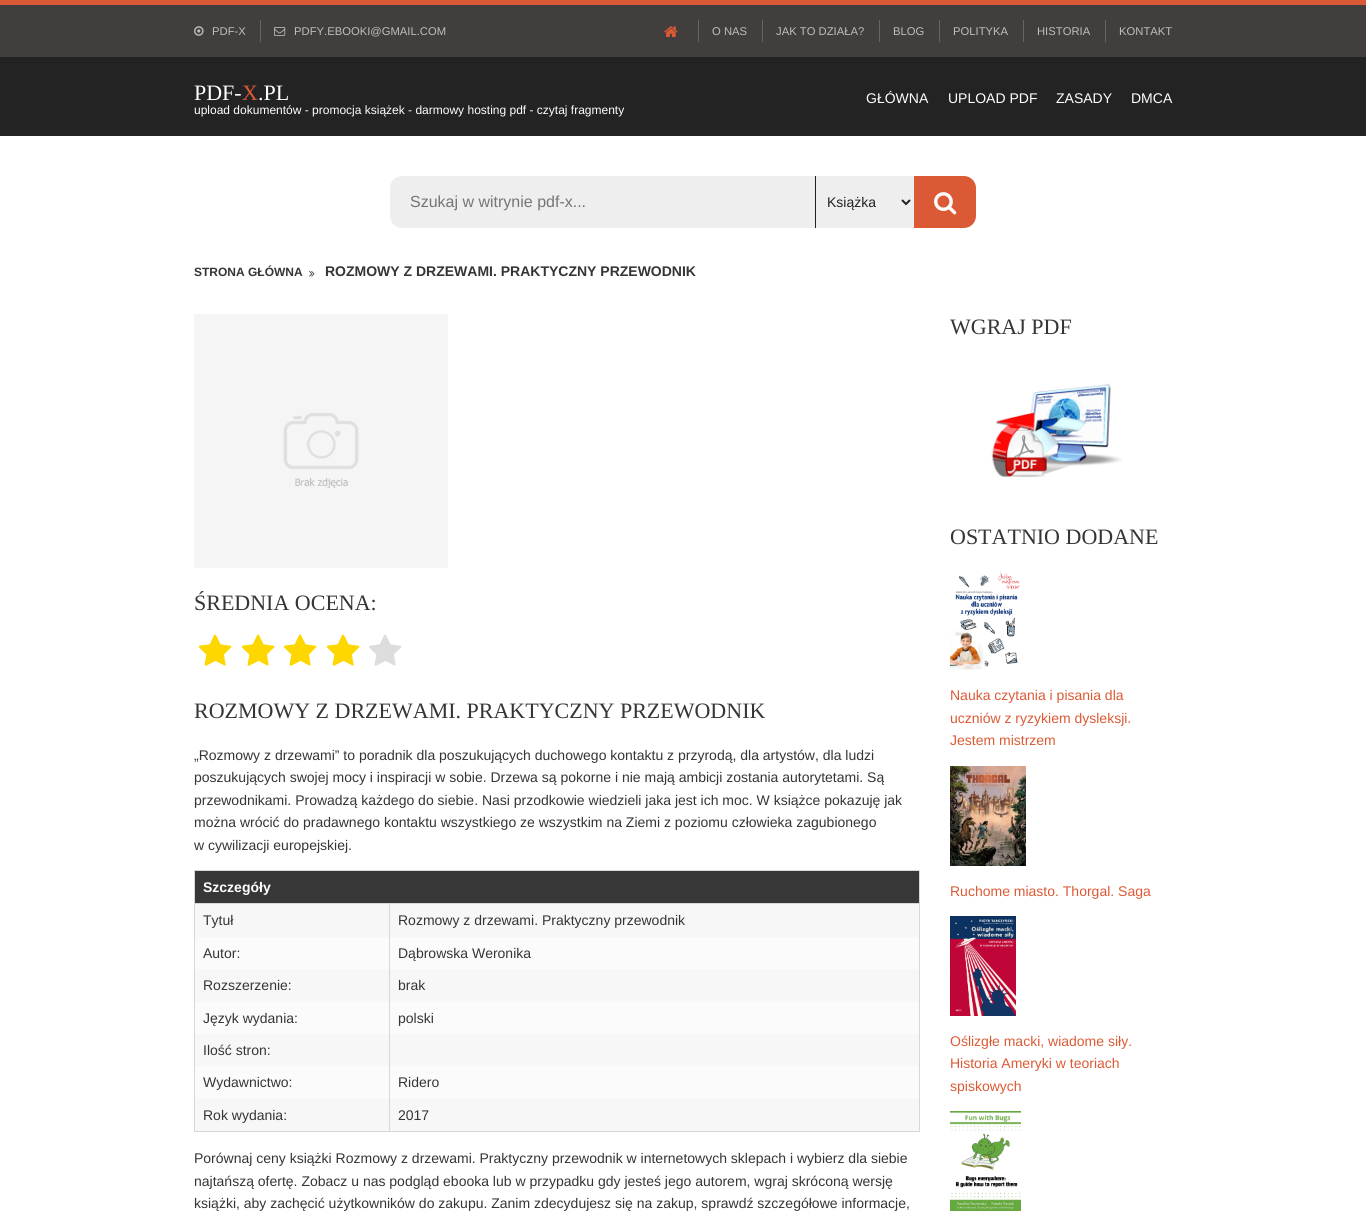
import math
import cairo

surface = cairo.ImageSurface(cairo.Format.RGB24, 1366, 1222)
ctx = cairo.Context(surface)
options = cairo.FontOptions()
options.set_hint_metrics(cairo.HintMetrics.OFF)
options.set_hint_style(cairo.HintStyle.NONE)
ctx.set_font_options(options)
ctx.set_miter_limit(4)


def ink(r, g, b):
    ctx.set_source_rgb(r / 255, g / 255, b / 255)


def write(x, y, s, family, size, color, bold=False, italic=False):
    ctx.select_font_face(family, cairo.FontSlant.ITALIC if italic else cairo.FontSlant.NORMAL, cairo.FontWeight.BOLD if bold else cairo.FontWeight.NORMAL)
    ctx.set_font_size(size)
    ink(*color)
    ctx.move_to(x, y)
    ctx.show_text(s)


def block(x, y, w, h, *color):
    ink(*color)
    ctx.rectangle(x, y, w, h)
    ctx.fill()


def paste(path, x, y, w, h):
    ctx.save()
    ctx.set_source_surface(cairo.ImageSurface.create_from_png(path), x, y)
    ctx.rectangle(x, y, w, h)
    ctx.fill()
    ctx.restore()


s1 = dict(family="Liberation Sans", size=11.25, color=(190, 190, 190))
s2 = dict(family="Liberation Serif", size=22, color=(255, 255, 255))
s3 = dict(family="Liberation Serif", size=22, color=(219, 90, 53))
s4 = dict(family="Liberation Sans", size=12, color=(255, 255, 255))
s5 = dict(family="Liberation Sans", size=14, color=(255, 255, 255))
s6 = dict(family="Liberation Sans", size=16, color=(117, 117, 117))
s7 = dict(family="Liberation Sans", size=14, color=(33, 33, 33))
s8 = dict(family="Liberation Sans", size=12, color=(53, 53, 53), bold=True)
s9 = dict(family="Liberation Sans", size=14, color=(53, 53, 53), bold=True)
s10 = dict(family="Liberation Serif", size=22, color=(53, 53, 53))
s11 = dict(family="Liberation Sans", size=14, color=(53, 53, 53))
s12 = dict(family="Liberation Sans", size=14, color=(255, 255, 255), bold=True)
s13 = dict(family="Liberation Sans", size=14, color=(219, 90, 53))

ink(255, 255, 255)
ctx.paint()
block(0, 5, 1366, 52, 65, 62, 61)
block(0, 0, 1366, 5, 219, 90, 53)
block(260, 20, 1, 22, 103, 101, 100)
paste("pic1.png", 194, 26, 10, 10)
write(212, 35, "PDF-X", **s1)
paste("pic2.png", 274, 27, 12, 9)
write(294, 35, "PDFY.EBOOKI@GMAIL.COM", **s1)
block(698, 20, 1, 22, 103, 101, 100)
paste("pic3.png", 664, 26, 14, 11)
block(762, 20, 1, 22, 103, 101, 100)
write(712, 35, "O NAS", **s1)
block(879, 20, 1, 22, 103, 101, 100)
write(776, 35, "JAK TO DZIAŁA?", **s1)
block(939, 20, 1, 22, 103, 101, 100)
write(893, 35, "BLOG", **s1)
block(1023, 20, 1, 22, 103, 101, 100)
write(953, 35, "POLITYKA", **s1)
block(1105, 20, 1, 22, 103, 101, 100)
write(1037, 35, "HISTORIA", **s1)
write(1119, 35, "KONTAKT", **s1)
block(0, 57, 1366, 79, 35, 35, 35)
write(194, 100, "PDF-", **s2)
write(242, 100, "X", **s3)
write(258, 100, ".PL", **s2)
write(194, 114, "upload dokumentów - promocja książek - darmowy hosting pdf - czytaj fragmenty", **s4)
write(866, 103, "GŁÓWNA", **s5)
write(948, 103, "UPLOAD PDF", **s5)
write(1056, 103, "ZASADY", **s5)
write(1131, 103, "DMCA", **s5)
ink(238, 238, 238)
ctx.new_path()
ctx.move_to(402, 176)
ctx.line_to(815, 176)
ctx.line_to(815, 228)
ctx.line_to(402, 228)
ctx.curve_to(395.5, 228, 390, 222.5, 390, 216)
ctx.line_to(390, 188)
ctx.curve_to(390, 181.5, 395.5, 176, 402, 176)
ctx.close_path()
ctx.fill()
write(410, 207, "Szukaj w witrynie pdf-x...", **s6)
block(816, 176, 98, 52, 238, 238, 238)
block(815, 176, 1, 52, 33, 33, 33)
ctx.new_path()
ctx.move_to(902, 200)
ctx.line_to(906, 204)
ctx.line_to(910, 200)
ctx.stroke()
write(827, 207, "Książka", **s7)
ink(219, 90, 53)
ctx.new_path()
ctx.move_to(914, 176)
ctx.line_to(964, 176)
ctx.curve_to(970.5, 176, 976, 181.5, 976, 188)
ctx.line_to(976, 216)
ctx.curve_to(976, 222.5, 970.5, 228, 964, 228)
ctx.line_to(914, 228)
ctx.close_path()
ctx.fill()
paste("pic4.png", 934, 192, 23, 23)
write(194, 276, "STRONA GŁÓWNA", **s8)
paste("pic5.png", 309, 271, 6, 6)
write(325, 276, "ROZMOWY Z DRZEWAMI. PRAKTYCZNY PRZEWODNIK", **s9)
paste("pic6.png", 194, 314, 254, 254)
write(194, 610, "ŚREDNIA OCENA:", **s10)
paste("pic7.png", 199, 634, 33, 32)
paste("pic7.png", 242, 634, 33, 32)
ink(255, 215, 0)
ctx.new_path()
ctx.move_to(258, 634.5)
ctx.line_to(258, 661)
ctx.curve_to(245, 667.5, 247, 668.5, 249.5, 654.5)
ctx.curve_to(239.5, 644.5, 238, 646.5, 253, 644.5)
ctx.curve_to(253.5, 643, 257, 634.5, 258, 634.5)
ctx.close_path()
ctx.move_to(215, 634.5)
ctx.line_to(215, 661)
ctx.curve_to(202, 667.5, 204, 668.5, 206.5, 654.5)
ctx.curve_to(196.5, 644.5, 195, 646.5, 210, 644.5)
ctx.curve_to(210.5, 643, 214, 634.5, 215, 634.5)
ctx.close_path()
ctx.fill()
paste("pic7.png", 284, 634, 33, 32)
paste("pic7.png", 327, 634, 33, 32)
ctx.new_path()
ctx.move_to(343, 634.5)
ctx.line_to(343, 661)
ctx.curve_to(330, 667.5, 332, 668.5, 334.5, 654.5)
ctx.curve_to(324.5, 644.5, 323, 646.5, 338, 644.5)
ctx.curve_to(338.5, 643, 342, 634.5, 343, 634.5)
ctx.close_path()
ctx.move_to(300, 634.5)
ctx.line_to(300, 661)
ctx.curve_to(287, 667.5, 289, 668.5, 291.5, 654.5)
ctx.curve_to(281.5, 644.5, 280, 646.5, 295, 644.5)
ctx.curve_to(295.5, 643, 299, 634.5, 300, 634.5)
ctx.close_path()
ctx.fill()
paste("pic8.png", 369, 634, 33, 32)
ink(221, 221, 221)
ctx.new_path()
ctx.move_to(385, 634.5)
ctx.line_to(385, 661)
ctx.curve_to(372, 667.5, 374, 668.5, 376.5, 654.5)
ctx.curve_to(366.5, 644.5, 365, 646.5, 380, 644.5)
ctx.curve_to(380.5, 643, 384, 634.5, 385, 634.5)
ctx.close_path()
ctx.fill()
write(194, 718, "ROZMOWY Z DRZEWAMI. PRAKTYCZNY PRZEWODNIK", **s10)
write(194, 760, "„Rozmowy z drzewami” to poradnik dla poszukujących duchowego kontaktu z przyrodą, dla artystów, dla ludzi", **s11)
write(194, 782, "poszukujących swojej mocy i inspiracji w sobie. Drzewa są pokorne i nie mają ambicji zostania autorytetami. Są", **s11)
write(194, 805, "przewodnikami. Prowadzą każdego do siebie. Nasi przodkowie wiedzieli jaka jest ich moc. W książce pokazuję jak", **s11)
write(194, 827, "można wrócić do pradawnego kontaktu wszystkiego ze wszystkim na Ziemi z poziomu człowieka zagubionego", **s11)
write(194, 850, "w cywilizacji europejskiej.", **s11)
block(194, 870, 726, 1, 215, 215, 215)
block(919, 870, 1, 262, 215, 215, 215)
block(194, 1131, 726, 1, 215, 215, 215)
block(194, 870, 1, 262, 215, 215, 215)
block(195, 871, 724, 32, 55, 55, 55)
block(195, 904, 724, 33, 247, 247, 247)
block(195, 937, 724, 32, 251, 251, 251)
block(195, 969, 724, 33, 247, 247, 247)
block(195, 1002, 724, 32, 251, 251, 251)
block(195, 1034, 724, 32, 247, 247, 247)
block(195, 1066, 724, 33, 251, 251, 251)
block(195, 1099, 724, 32, 247, 247, 247)
block(389, 903, 1, 229, 215, 215, 215)
block(194, 903, 726, 1, 215, 215, 215)
write(203, 892, "Szczegóły", **s12)
write(203, 925, "Tytuł", **s11)
write(398, 925, "Rozmowy z drzewami. Praktyczny przewodnik", **s11)
write(203, 958, "Autor:", **s11)
write(398, 958, "Dąbrowska Weronika", **s11)
write(203, 990, "Rozszerzenie:", **s11)
write(398, 990, "brak", **s11)
write(203, 1023, "Język wydania:", **s11)
write(398, 1023, "polski", **s11)
write(203, 1055, "Ilość stron:", **s11)
write(203, 1087, "Wydawnictwo:", **s11)
write(398, 1087, "Ridero", **s11)
write(203, 1120, "Rok wydania:", **s11)
write(398, 1120, "2017", **s11)
write(194, 1163, "Porównaj ceny książki Rozmowy z drzewami. Praktyczny przewodnik w internetowych sklepach i wybierz dla siebie", **s11)
write(194, 1186, "najtańszą ofertę. Zobacz u nas podgląd ebooka lub w przypadku gdy jesteś jego autorem, wgraj skróconą wersję", **s11)
write(194, 1208, "książki, aby zachęcić użytkowników do zakupu. Zanim zdecydujesz się na zakup, sprawdź szczegółowe informacje,", **s11)
write(950, 334, "WGRAJ PDF", **s10)
paste("pic9.png", 991, 383, 132, 95)
write(950, 544, "OSTATNIO DODANE", **s10)
paste("pic10.png", 950, 572, 71, 98)
write(950, 700, "Nauka czytania i pisania dla", **s13)
write(950, 723, "uczniów z ryzykiem dysleksji.", **s13)
write(950, 745, "Jestem mistrzem", **s13)
paste("pic11.png", 950, 766, 76, 100)
write(950, 896, "Ruchome miasto. Thorgal. Saga", **s13)
paste("pic12.png", 950, 916, 66, 100)
write(950, 1046, "Oślizgłe macki, wiadome siły.", **s13)
write(950, 1068, "Historia Ameryki w teoriach", **s13)
write(950, 1091, "spiskowych", **s13)
paste("pic13.png", 950, 1111, 71, 100)
surface.write_to_png("screenshot.png")
